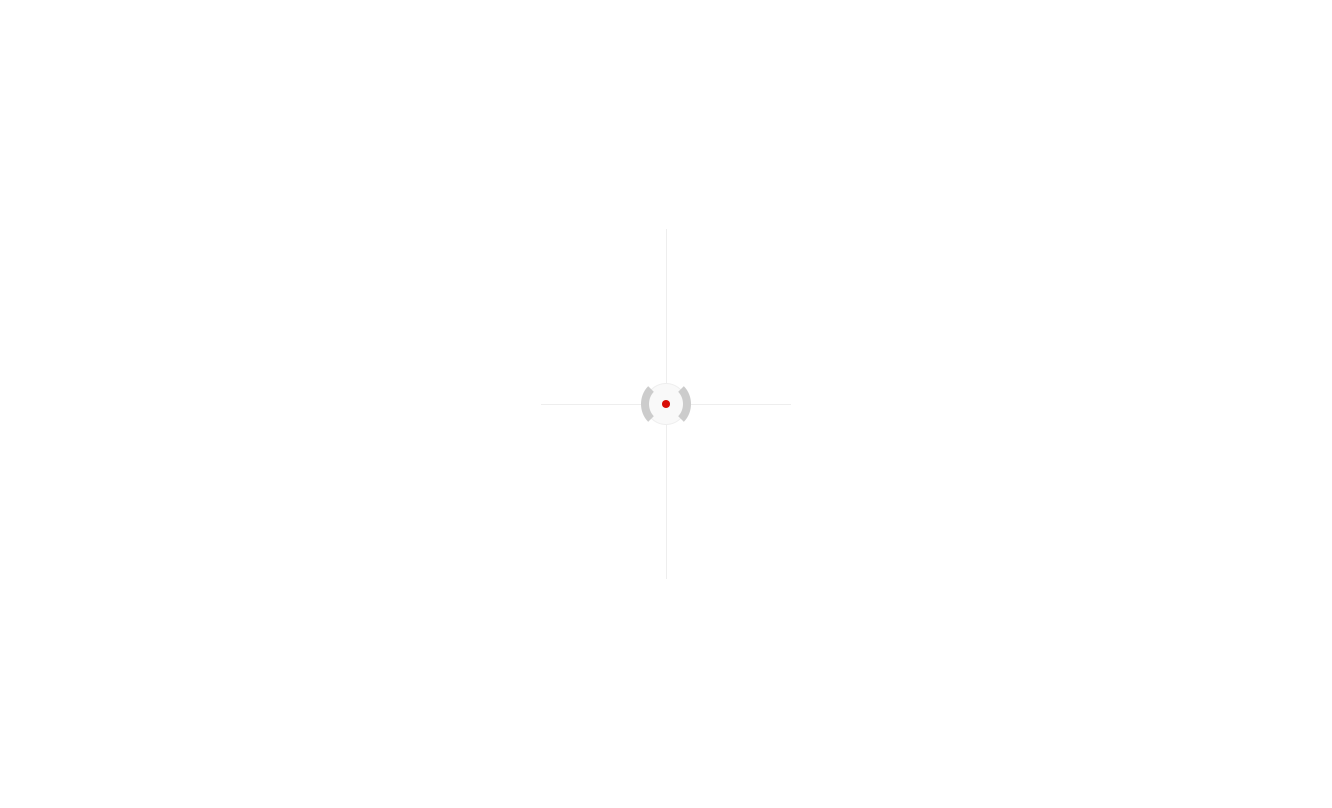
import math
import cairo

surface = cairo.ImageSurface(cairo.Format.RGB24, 1332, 808)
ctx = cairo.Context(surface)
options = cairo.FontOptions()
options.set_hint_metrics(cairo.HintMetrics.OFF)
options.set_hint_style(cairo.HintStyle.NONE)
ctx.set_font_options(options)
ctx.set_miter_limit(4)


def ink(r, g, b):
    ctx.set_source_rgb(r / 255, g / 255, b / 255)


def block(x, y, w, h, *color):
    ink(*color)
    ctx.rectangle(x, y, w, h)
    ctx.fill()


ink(255, 255, 255)
ctx.paint()
block(666, 229, 1, 350, 238, 238, 238)
block(541, 404, 250, 1, 238, 238, 238)
ink(249, 249, 249)
ctx.arc(666, 404, 20.5, 0, 2 * math.pi)
ctx.fill_preserve()
ink(238, 238, 238)
ctx.set_line_width(1)
ctx.stroke()
ink(216, 13, 7)
ctx.arc(666, 404, 4, 0, 2 * math.pi)
ctx.fill()
ctx.new_path()
ctx.move_to(681, 389)
ctx.curve_to(689, 397, 689, 411, 681, 419)
ctx.move_to(651, 419)
ctx.curve_to(643, 411, 643, 397, 651, 389)
ink(204, 204, 204)
ctx.set_line_width(8)
ctx.stroke()
surface.write_to_png("screenshot.png")
